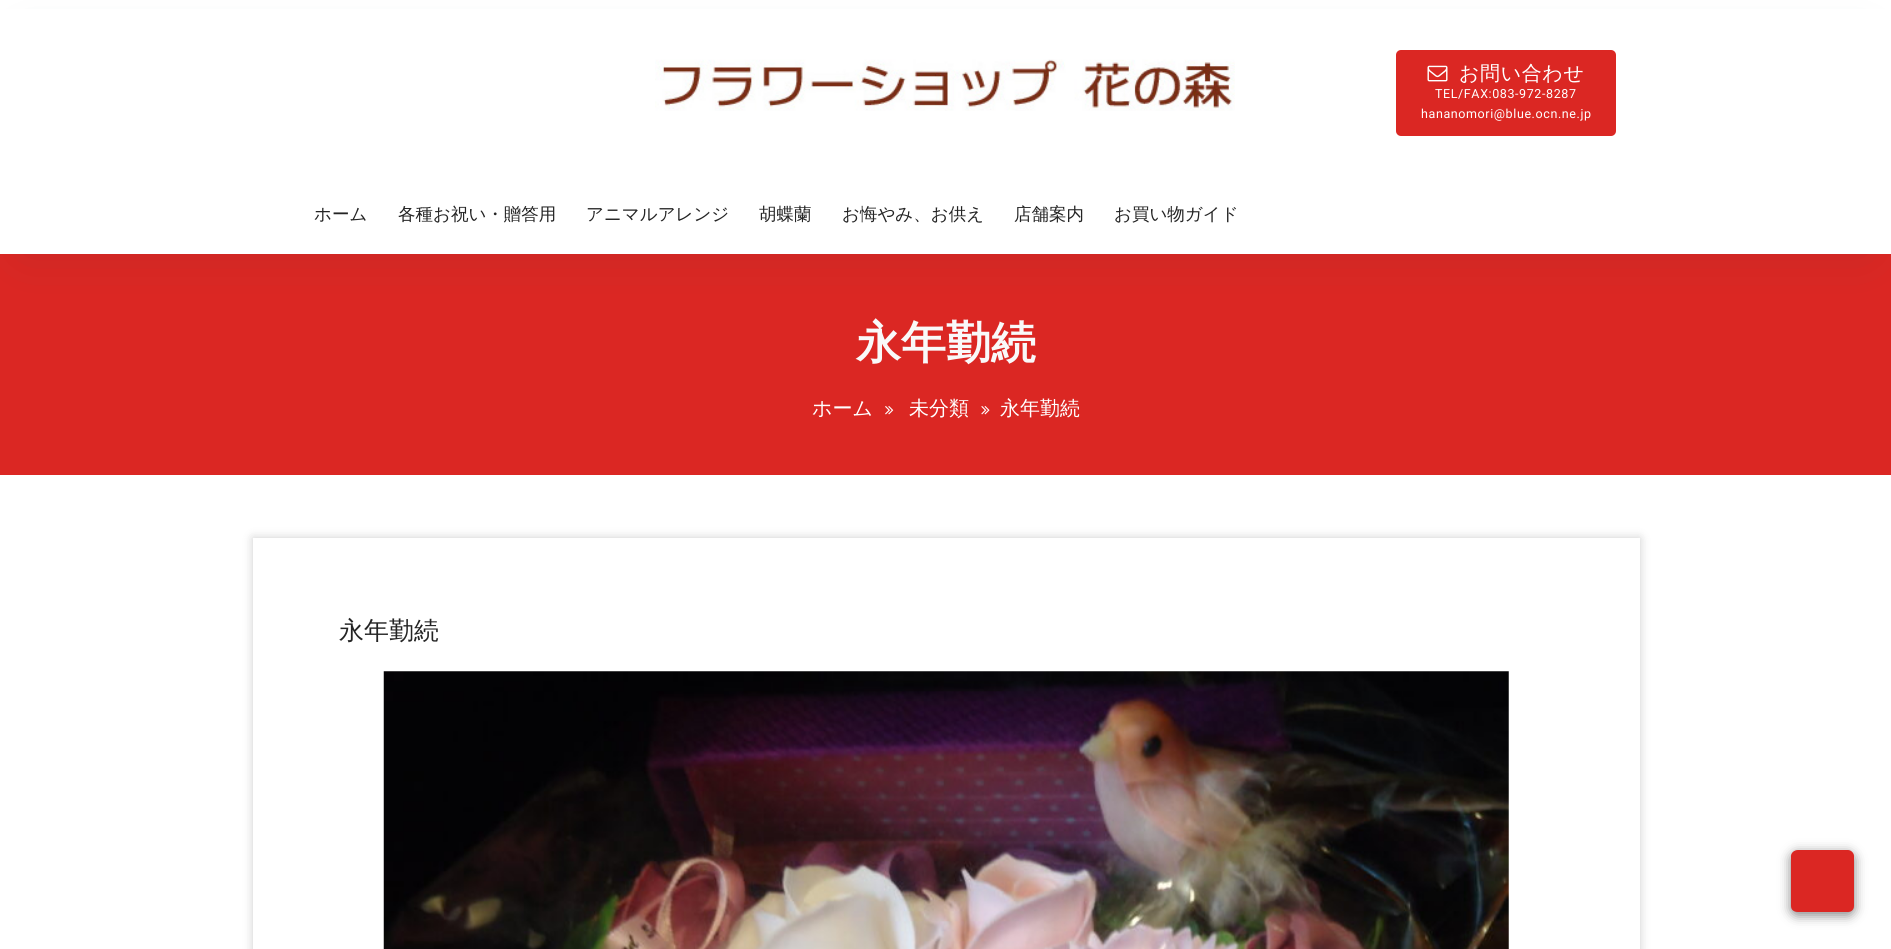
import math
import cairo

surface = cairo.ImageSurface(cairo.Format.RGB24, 1891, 949)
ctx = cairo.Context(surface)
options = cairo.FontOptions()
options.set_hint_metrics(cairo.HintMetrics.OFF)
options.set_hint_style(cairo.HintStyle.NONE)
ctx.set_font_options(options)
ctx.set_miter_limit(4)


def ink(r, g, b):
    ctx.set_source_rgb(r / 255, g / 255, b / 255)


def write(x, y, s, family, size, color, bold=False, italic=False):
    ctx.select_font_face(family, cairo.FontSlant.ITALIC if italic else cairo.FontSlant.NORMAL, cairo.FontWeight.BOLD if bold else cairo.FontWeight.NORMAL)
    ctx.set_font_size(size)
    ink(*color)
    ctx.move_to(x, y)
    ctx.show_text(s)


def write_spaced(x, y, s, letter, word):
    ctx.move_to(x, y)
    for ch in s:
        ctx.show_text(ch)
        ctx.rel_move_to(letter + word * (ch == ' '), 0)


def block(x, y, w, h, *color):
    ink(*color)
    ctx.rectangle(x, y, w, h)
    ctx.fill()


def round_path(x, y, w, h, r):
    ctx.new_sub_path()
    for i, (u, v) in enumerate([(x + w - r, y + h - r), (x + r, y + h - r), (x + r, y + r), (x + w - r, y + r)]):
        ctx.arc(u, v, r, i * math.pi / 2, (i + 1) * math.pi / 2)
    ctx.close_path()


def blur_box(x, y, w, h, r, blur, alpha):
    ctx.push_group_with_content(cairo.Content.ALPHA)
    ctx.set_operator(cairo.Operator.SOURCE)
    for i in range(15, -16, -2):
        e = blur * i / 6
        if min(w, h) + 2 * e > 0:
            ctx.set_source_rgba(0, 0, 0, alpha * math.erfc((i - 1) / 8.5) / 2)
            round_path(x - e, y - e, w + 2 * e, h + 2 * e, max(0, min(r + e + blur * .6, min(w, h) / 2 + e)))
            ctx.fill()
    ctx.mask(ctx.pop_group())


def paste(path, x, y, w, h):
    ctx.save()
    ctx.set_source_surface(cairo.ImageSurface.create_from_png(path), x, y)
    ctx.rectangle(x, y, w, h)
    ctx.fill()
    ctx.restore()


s1 = dict(family="WenQuanYi Zen Hei Medium", size=17.5, color=(36, 36, 36))
s2 = dict(family="WenQuanYi Zen Hei", size=45, color=(249, 249, 249), bold=True)
s3 = dict(family="WenQuanYi Zen Hei Medium", size=20, color=(255, 255, 255))
s4 = dict(family="WenQuanYi Zen Hei Medium", size=25, color=(36, 36, 36))

ink(255, 255, 255)
ctx.paint()
block(0, 254, 1891, 221, 219, 39, 35)
ink(40, 44, 63)
blur_box(25, 44, 1841, 204, 0, 25, 0.15)
block(0, 9, 1891, 245, 255, 255, 255)
paste("pic1.png", 655, 59, 580, 52)
ink(219, 39, 35)
round_path(1396, 50, 220, 86, 5)
ctx.fill()
paste("pic2.png", 1427, 65, 21, 17)
ctx.select_font_face("WenQuanYi Zen Hei Medium")
ctx.set_font_size(20)
ink(255, 255, 255)
write_spaced(1459, 80, "お問い合わせ", 0.6, 0)
ctx.select_font_face("Roboto")
ctx.set_font_size(12.5)
write_spaced(1435, 98, "TEL/FAX:083-972-8287", 0.6, 0)
write_spaced(1421, 118, "hananomori@blue.ocn.ne.jp", 0.6, 0)
write(314, 220, "ホーム", **s1)
write(398, 220, "各種お祝い・贈答用", **s1)
write(586, 220, "アニマルアレンジ", **s1)
write(759, 220, "胡蝶蘭", **s1)
write(842, 220, "お悔やみ、お供え", **s1)
write(1014, 220, "店舗案内", **s1)
write(1114, 220, "お買い物ガイド", **s1)
write(856, 358, "永年勤続", **s2)
write(812, 415, "ホーム", **s3)
paste("pic3.png", 885, 406, 9, 9)
write(909, 415, "未分類", **s3)
paste("pic4.png", 981, 406, 9, 9)
write(1000, 415, "永年勤続", **s3)
ctx.save()
ctx.set_fill_rule(cairo.FillRule.EVEN_ODD)
ctx.new_path()
ctx.move_to(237, 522)
ctx.line_to(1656, 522)
ctx.line_to(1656, 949)
ctx.line_to(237, 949)
ctx.close_path()
ctx.move_to(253, 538)
ctx.line_to(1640, 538)
ctx.line_to(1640, 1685)
ctx.line_to(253, 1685)
ctx.close_path()
ctx.clip()
ink(0, 0, 0)
blur_box(253, 538, 1387, 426, 0, 5, 0.2)
ctx.restore()
write(339, 639, "永年勤続", **s4)
paste("pic5.png", 383, 671, 1126, 278)
ink(0, 0, 0)
blur_box(1791, 853, 63, 62, 6, 6, 0.5)
ink(219, 39, 35)
ctx.new_path()
ctx.move_to(1848, 912)
ctx.line_to(1798, 912)
ctx.curve_to(1794, 912, 1791, 910, 1791, 906)
ctx.line_to(1791, 856)
ctx.curve_to(1791, 853, 1794, 850, 1798, 850)
ctx.line_to(1848, 850)
ctx.curve_to(1851, 850, 1854, 853, 1854, 856)
ctx.line_to(1854, 906)
ctx.curve_to(1854, 910, 1851, 912, 1848, 912)
ctx.close_path()
ctx.fill()
surface.write_to_png("screenshot.png")
